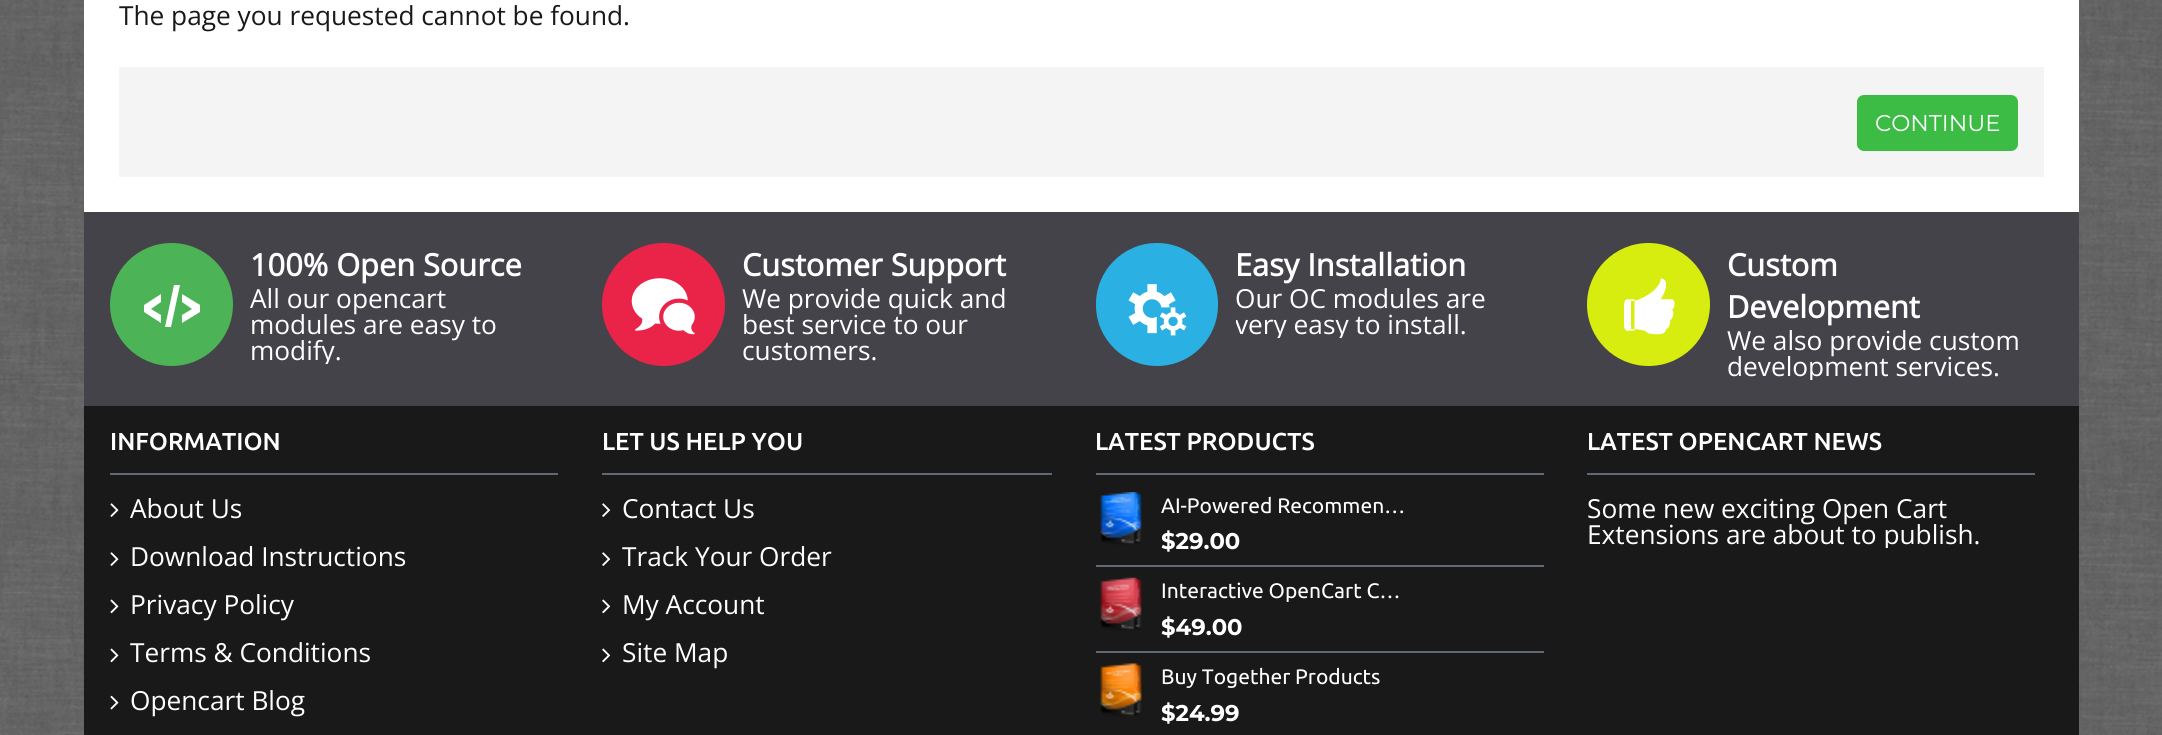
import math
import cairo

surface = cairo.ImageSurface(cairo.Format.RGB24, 2162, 735)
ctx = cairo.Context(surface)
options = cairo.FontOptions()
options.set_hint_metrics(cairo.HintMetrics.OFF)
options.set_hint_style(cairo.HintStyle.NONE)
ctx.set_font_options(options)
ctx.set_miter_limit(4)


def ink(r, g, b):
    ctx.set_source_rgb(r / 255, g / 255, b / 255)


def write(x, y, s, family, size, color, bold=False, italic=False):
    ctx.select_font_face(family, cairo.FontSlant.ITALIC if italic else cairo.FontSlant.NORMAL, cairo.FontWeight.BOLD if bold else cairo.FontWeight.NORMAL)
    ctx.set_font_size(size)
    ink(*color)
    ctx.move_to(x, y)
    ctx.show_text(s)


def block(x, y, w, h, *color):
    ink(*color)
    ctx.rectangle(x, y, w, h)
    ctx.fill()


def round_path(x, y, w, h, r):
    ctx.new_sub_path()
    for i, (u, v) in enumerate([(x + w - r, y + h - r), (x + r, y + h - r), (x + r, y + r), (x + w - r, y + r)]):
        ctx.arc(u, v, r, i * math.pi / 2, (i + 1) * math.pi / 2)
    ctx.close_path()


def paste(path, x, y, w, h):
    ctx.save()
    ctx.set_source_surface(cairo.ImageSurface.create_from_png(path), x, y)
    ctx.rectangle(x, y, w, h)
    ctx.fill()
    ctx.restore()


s1 = dict(family="Open Sans", size=26.25, color=(25, 25, 25))
s2 = dict(family="Montserrat", size=22.75, color=(255, 255, 255))
s3 = dict(family="Open Sans", size=30.75, color=(255, 255, 255), bold=True)
s4 = dict(family="Open Sans", size=26.25, color=(255, 255, 255))
s5 = dict(family="Ubuntu Medium", size=24.5, color=(255, 255, 255))
s6 = dict(family="Ubuntu", size=21, color=(255, 255, 255))
s7 = dict(family="Montserrat", size=22.75, color=(255, 255, 255), bold=True)

ink(255, 255, 255)
ctx.paint()
paste("pic1.png", 0, 0, 2162, 735)
block(84, 0, 1995, 212, 255, 255, 255)
write(119, 25, "The page you requested cannot be found.", **s1)
block(119, 67, 1925, 110, 244, 244, 244)
ink(60, 188, 69)
round_path(1857, 95, 161, 56, 7)
ctx.fill()
write(1875, 131, "CONTINUE", **s2)
block(84, 406, 1995, 329, 25, 25, 25)
block(84, 212, 1995, 194, 68, 67, 73)
ink(76, 179, 86)
ctx.new_path()
ctx.arc(171.5, 304.5, 61.5, 0, 2 * math.pi)
ctx.fill()
ink(255, 255, 255)
ctx.new_path()
ctx.move_to(144, 312)
ctx.line_to(161, 323)
ctx.line_to(161, 315)
ctx.line_to(151, 309)
ctx.line_to(161, 302)
ctx.line_to(161, 294)
ctx.line_to(144, 305)
ctx.close_path()
ctx.move_to(165, 327)
ctx.line_to(171, 327)
ctx.line_to(180, 285)
ctx.line_to(174, 285)
ctx.close_path()
ctx.move_to(182, 294)
ctx.line_to(182, 302)
ctx.line_to(192, 309)
ctx.line_to(182, 315)
ctx.line_to(182, 323)
ctx.line_to(200, 312)
ctx.line_to(200, 305)
ctx.close_path()
ctx.fill()
write(250, 276, "100% Open Source", **s3)
write(250, 308, "All our opencart", **s4)
write(250, 334, "modules are easy to", **s4)
ctx.save()
ctx.rectangle(250, 285, 308, 79)
ctx.clip()
write(250, 360, "modify.", **s4)
ctx.restore()
ink(234, 35, 73)
ctx.new_path()
ctx.arc(663.5, 304.5, 61.5, 0, 2 * math.pi)
ctx.fill()
paste("pic2.png", 631, 278, 64, 57)
write(742, 276, "Customer Support", **s3)
write(742, 308, "We provide quick and", **s4)
write(742, 334, "best service to our", **s4)
write(742, 360, "customers.", **s4)
ink(43, 176, 227)
round_path(1096, 243, 122, 123, 61)
ctx.fill()
paste("pic3.png", 1128, 284, 59, 52)
write(1235, 276, "Easy Installation", **s3)
write(1235, 308, "Our OC modules are", **s4)
ctx.save()
ctx.rectangle(1236, 285, 308, 53)
ctx.clip()
write(1235, 334, "very easy to install.", **s4)
ctx.restore()
ink(215, 236, 15)
ctx.new_path()
ctx.arc(1648.5, 304.5, 61.5, 0, 2 * math.pi)
ctx.fill()
paste("pic4.png", 1624, 278, 51, 57)
write(1727, 276, "Custom", **s3)
write(1727, 318, "Development", **s3)
write(1727, 350, "We also provide custom", **s4)
ctx.save()
ctx.rectangle(1727, 327, 308, 53)
ctx.clip()
write(1727, 376, "development services.", **s4)
ctx.restore()
block(110, 473, 448, 2, 95, 104, 116)
write(110, 450, "INFORMATION", **s5)
paste("pic5.png", 110, 503, 9, 14)
write(130, 518, "About Us", **s4)
paste("pic5.png", 110, 552, 9, 14)
write(130, 566, "Download Instructions", **s4)
paste("pic6.png", 110, 599, 9, 15)
write(130, 614, "Privacy Policy", **s4)
paste("pic6.png", 110, 648, 9, 15)
write(130, 662, "Terms & Conditions", **s4)
paste("pic7.png", 110, 695, 9, 15)
write(130, 710, "Opencart Blog", **s4)
block(602, 473, 450, 2, 95, 104, 116)
write(602, 450, "LET US HELP YOU", **s5)
paste("pic8.png", 602, 503, 9, 14)
write(622, 518, "Contact Us", **s4)
paste("pic8.png", 602, 552, 9, 14)
write(622, 566, "Track Your Order", **s4)
paste("pic9.png", 602, 599, 9, 15)
write(622, 614, "My Account", **s4)
paste("pic9.png", 602, 648, 9, 15)
write(622, 662, "Site Map", **s4)
block(1096, 473, 448, 2, 95, 104, 116)
write(1095, 450, "LATEST PRODUCTS", **s5)
block(1096, 565, 448, 2, 95, 104, 116)
paste("pic10.png", 1100, 492, 42, 53)
write(1161, 513, "AI-Powered Recommen…", **s6)
write(1161, 549, "$29.00", **s7)
block(1096, 651, 448, 2, 95, 104, 116)
paste("pic11.png", 1100, 577, 42, 53)
write(1161, 598, "Interactive OpenCart C…", **s6)
write(1161, 635, "$49.00", **s7)
paste("pic12.png", 1100, 663, 42, 53)
write(1161, 684, "Buy Together Products", **s6)
write(1161, 721, "$24.99", **s7)
block(1587, 473, 448, 2, 95, 104, 116)
write(1587, 450, "LATEST OPENCART NEWS", **s5)
write(1587, 518, "Some new exciting Open Cart", **s4)
ctx.save()
ctx.rectangle(1587, 495, 448, 53)
ctx.clip()
write(1587, 544, "Extensions are about to publish.", **s4)
ctx.restore()
surface.write_to_png("screenshot.png")
